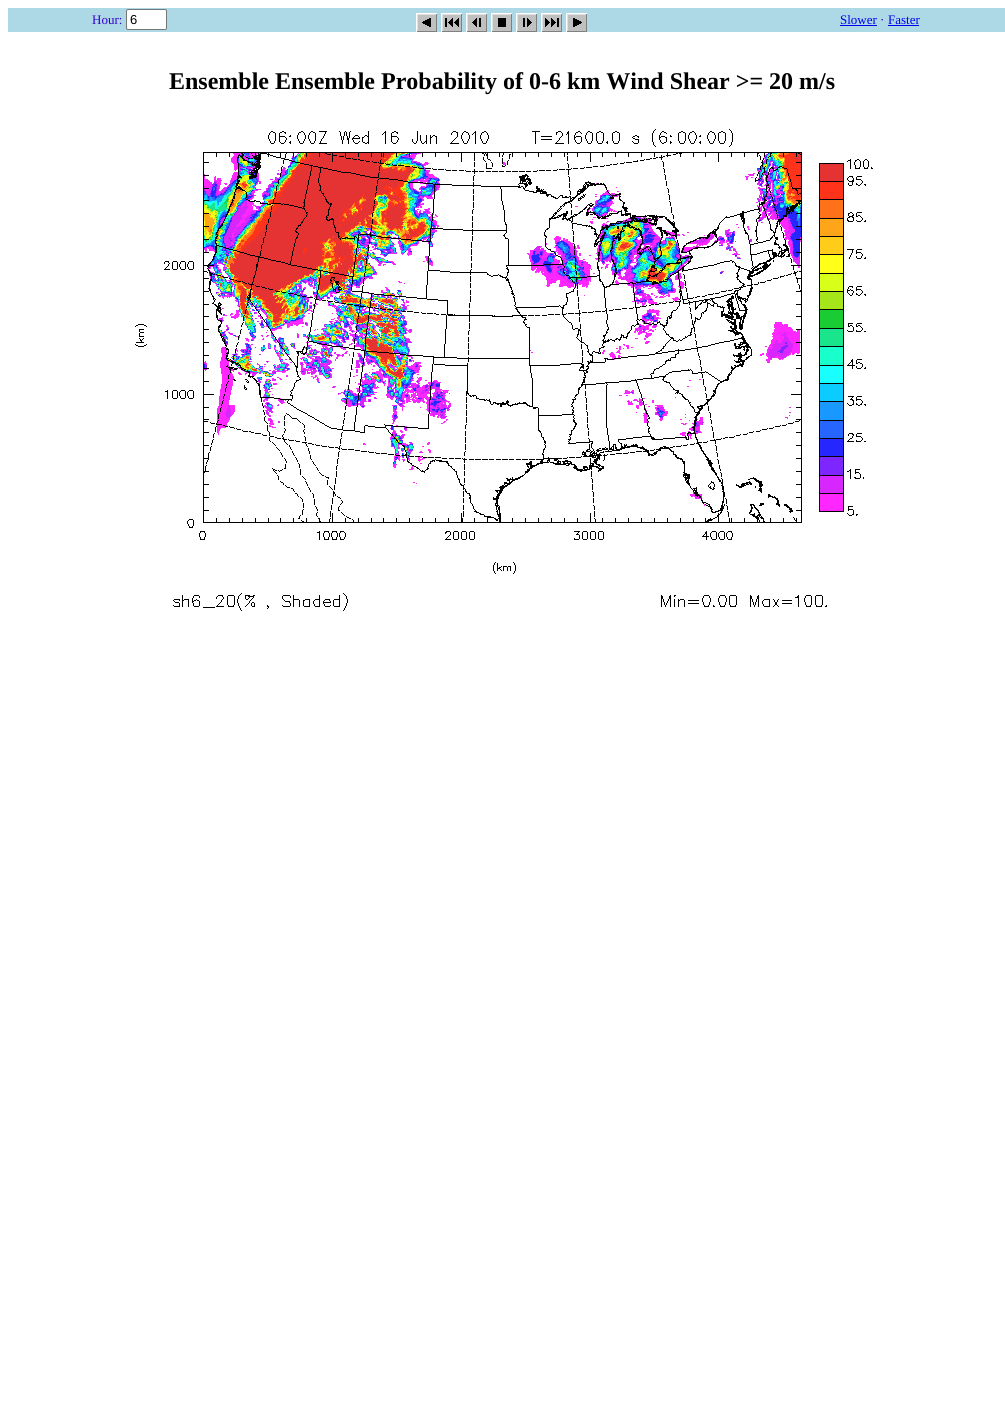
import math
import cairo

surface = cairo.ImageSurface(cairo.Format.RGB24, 1005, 1412)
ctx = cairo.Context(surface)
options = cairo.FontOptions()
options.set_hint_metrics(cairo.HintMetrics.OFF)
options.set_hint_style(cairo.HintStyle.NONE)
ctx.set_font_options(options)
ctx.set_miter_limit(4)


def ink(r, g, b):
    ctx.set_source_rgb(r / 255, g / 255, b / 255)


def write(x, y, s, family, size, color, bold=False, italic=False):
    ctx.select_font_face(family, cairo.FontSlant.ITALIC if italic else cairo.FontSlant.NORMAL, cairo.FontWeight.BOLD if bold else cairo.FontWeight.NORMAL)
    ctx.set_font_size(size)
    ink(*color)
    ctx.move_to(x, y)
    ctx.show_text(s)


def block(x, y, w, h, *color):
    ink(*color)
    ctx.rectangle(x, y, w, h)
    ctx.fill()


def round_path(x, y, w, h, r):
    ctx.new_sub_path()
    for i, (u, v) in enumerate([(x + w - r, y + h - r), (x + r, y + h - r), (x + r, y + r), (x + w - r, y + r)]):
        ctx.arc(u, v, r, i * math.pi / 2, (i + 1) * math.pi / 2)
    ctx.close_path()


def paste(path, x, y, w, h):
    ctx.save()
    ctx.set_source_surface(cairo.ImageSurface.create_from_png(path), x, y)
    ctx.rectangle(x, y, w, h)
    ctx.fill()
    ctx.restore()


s1 = dict(family="Liberation Serif", size=13, color=(51, 0, 204))
s2 = dict(family="Liberation Sans", size=13, color=(0, 0, 0))
s3 = dict(family="Liberation Serif", size=13, color=(0, 0, 238))
s4 = dict(family="Liberation Serif", size=24, color=(0, 0, 0), bold=True)

ink(255, 255, 255)
ctx.paint()
block(8, 8, 997, 24, 173, 216, 230)
write(92, 24, "Hour:", **s1)
ink(255, 255, 255)
round_path(126.5, 9.5, 40, 20, 1.5)
ctx.fill_preserve()
ink(118, 118, 118)
ctx.set_line_width(1)
ctx.stroke()
write(130, 24, "6", **s2)
paste("pic1.png", 416, 13, 21, 19)
paste("pic2.png", 441, 13, 21, 19)
paste("pic3.png", 466, 13, 21, 19)
paste("pic4.png", 491, 13, 21, 19)
paste("pic5.png", 516, 13, 21, 19)
paste("pic6.png", 541, 13, 21, 19)
paste("pic7.png", 566, 13, 21, 19)
write(840, 24, "Slower", **s3)
block(840, 25, 37, 1, 0, 0, 238)
write(880, 24, "·", **s1)
write(888, 24, "Faster", **s3)
block(888, 25, 31, 1, 0, 0, 238)
write(169, 89, "Ensemble Ensemble Probability of 0-6 km Wind Shear >= 20 m/s", **s4)
paste("pic8.png", 135, 129, 738, 482)
surface.write_to_png("screenshot.png")
